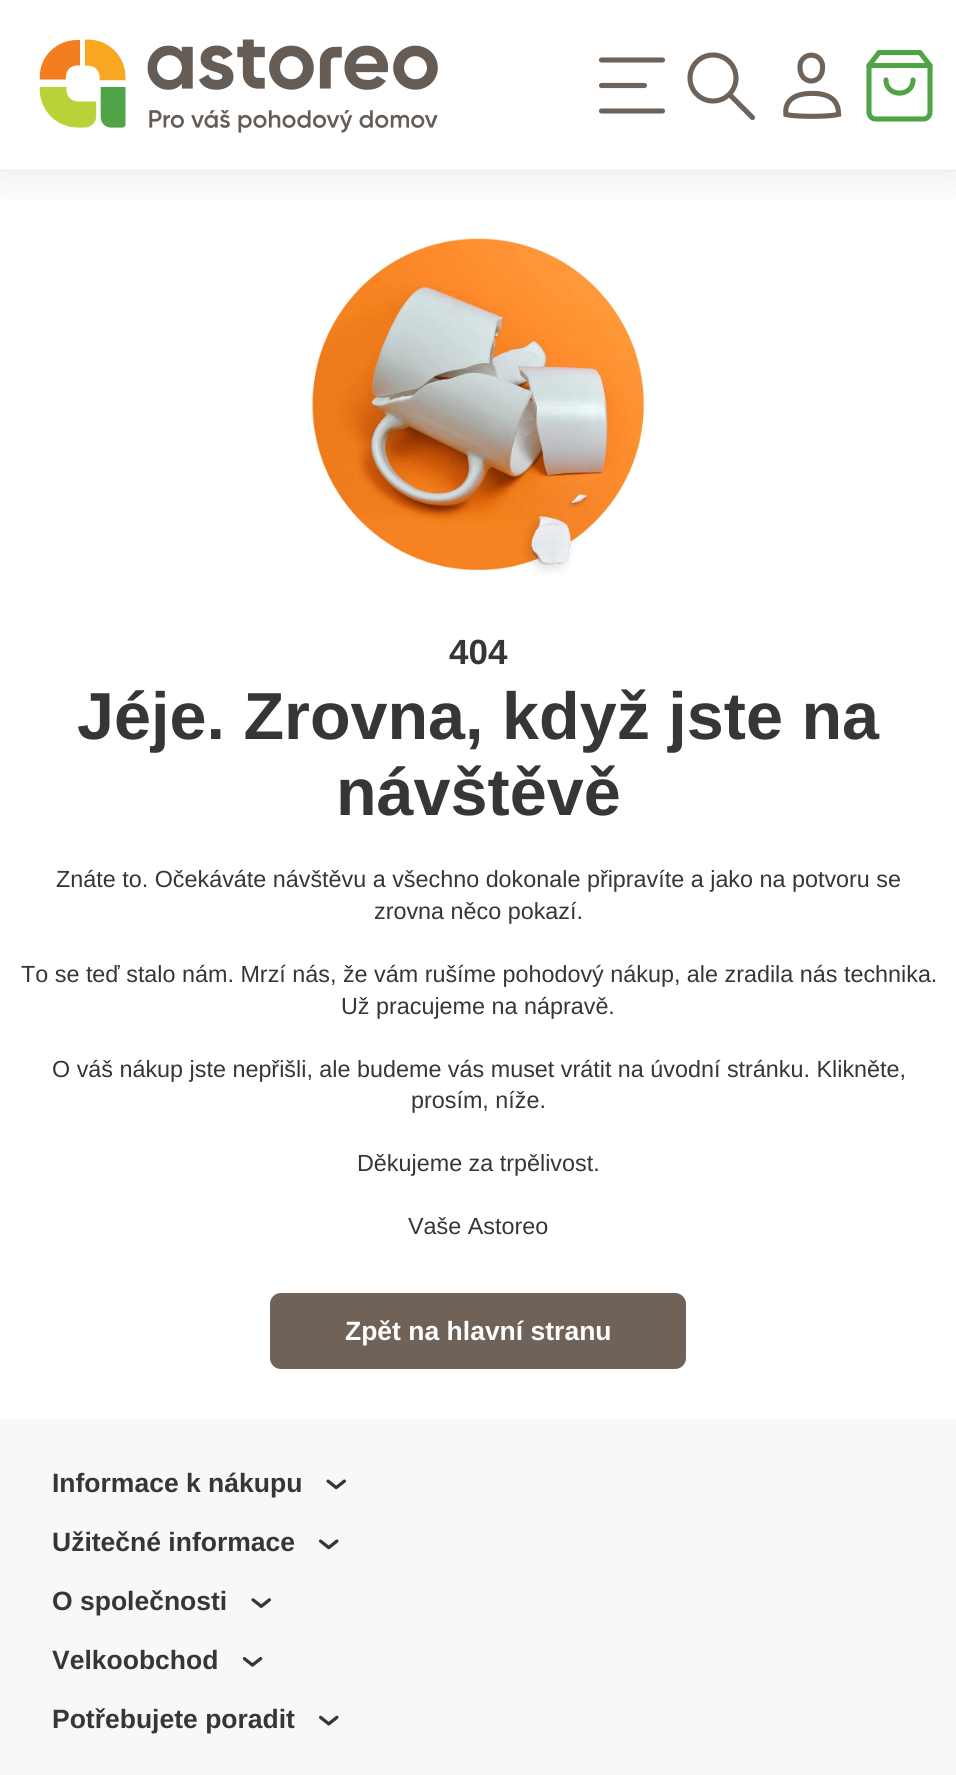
import math
import cairo

surface = cairo.ImageSurface(cairo.Format.RGB24, 956, 1775)
ctx = cairo.Context(surface)
options = cairo.FontOptions()
options.set_hint_metrics(cairo.HintMetrics.OFF)
options.set_hint_style(cairo.HintStyle.NONE)
ctx.set_font_options(options)
ctx.set_miter_limit(4)


def ink(r, g, b):
    ctx.set_source_rgb(r / 255, g / 255, b / 255)


def write(x, y, s, family, size, color, bold=False, italic=False):
    ctx.select_font_face(family, cairo.FontSlant.ITALIC if italic else cairo.FontSlant.NORMAL, cairo.FontWeight.BOLD if bold else cairo.FontWeight.NORMAL)
    ctx.set_font_size(size)
    ink(*color)
    ctx.move_to(x, y)
    ctx.show_text(s)


def block(x, y, w, h, *color):
    ink(*color)
    ctx.rectangle(x, y, w, h)
    ctx.fill()


def round_path(x, y, w, h, r):
    ctx.new_sub_path()
    for i, (u, v) in enumerate([(x + w - r, y + h - r), (x + r, y + h - r), (x + r, y + r), (x + w - r, y + r)]):
        ctx.arc(u, v, r, i * math.pi / 2, (i + 1) * math.pi / 2)
    ctx.close_path()


def blur_box(x, y, w, h, r, blur, alpha):
    ctx.push_group_with_content(cairo.Content.ALPHA)
    ctx.set_operator(cairo.Operator.SOURCE)
    for i in range(15, -16, -2):
        e = blur * i / 6
        if min(w, h) + 2 * e > 0:
            ctx.set_source_rgba(0, 0, 0, alpha * math.erfc((i - 1) / 8.5) / 2)
            round_path(x - e, y - e, w + 2 * e, h + 2 * e, max(0, min(r + e + blur * .6, min(w, h) / 2 + e)))
            ctx.fill()
    ctx.mask(ctx.pop_group())


def paste(path, x, y, w, h):
    ctx.save()
    ctx.set_source_surface(cairo.ImageSurface.create_from_png(path), x, y)
    ctx.rectangle(x, y, w, h)
    ctx.fill()
    ctx.restore()


s1 = dict(family="Liberation Sans", size=35, color=(54, 54, 54), bold=True)
s2 = dict(family="Liberation Sans", size=66.5, color=(54, 54, 54), bold=True)
s3 = dict(family="Liberation Sans", size=23.35, color=(54, 54, 54))
s4 = dict(family="Liberation Sans", size=26.5, color=(255, 255, 255), bold=True)
s5 = dict(family="Liberation Sans", size=26.5, color=(54, 54, 54), bold=True)

ink(255, 255, 255)
ctx.paint()
paste("pic3.png", 312, 238, 332, 337)
ctx.save()
ctx.rectangle(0, 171, 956, 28)
ctx.clip()
ink(110, 98, 89)
blur_box(0, 0, 956, 171, 0, 25, 0.15)
ctx.restore()
block(0, 170, 956, 1, 234, 234, 234)
paste("pic1.png", 39, 39, 399, 94)
ctx.new_path()
ctx.move_to(601.5, 60)
ctx.line_to(662.5, 60)
ink(110, 98, 89)
ctx.set_line_width(5.1)
ctx.set_line_cap(cairo.LineCap.ROUND)
ctx.stroke()
ctx.new_path()
ctx.move_to(601.5, 85.5)
ctx.line_to(644.5, 85.5)
ctx.stroke()
ctx.new_path()
ctx.move_to(601.5, 111)
ctx.line_to(662.5, 111)
ctx.stroke()
ctx.arc(713, 78, 23, 0, 2 * math.pi)
ctx.set_line_cap(cairo.LineCap.BUTT)
ctx.stroke()
ctx.new_path()
ctx.move_to(731, 96)
ctx.line_to(752.5, 117.5)
ctx.set_line_cap(cairo.LineCap.ROUND)
ctx.stroke()
paste("pic2.png", 783, 52, 59, 67)
ctx.new_path()
ctx.move_to(869, 65.5)
ctx.line_to(869, 112)
ctx.curve_to(869, 116, 872, 119, 875.5, 119)
ctx.line_to(923.5, 119)
ctx.curve_to(927, 119, 930, 116, 930, 112)
ctx.line_to(930, 65.5)
ctx.close_path()
ink(80, 163, 70)
ctx.set_line_join(cairo.LineJoin.ROUND)
ctx.stroke()
ctx.new_path()
ctx.move_to(930, 65.5)
ctx.line_to(920, 52.5)
ctx.line_to(879, 52.5)
ctx.line_to(869, 65.5)
ctx.stroke()
ctx.new_path()
ctx.move_to(913, 80)
ctx.curve_to(913, 97.5, 886, 97.5, 886, 80)
ctx.stroke()
write(449, 664, "404", **s1)
write(77, 739, "Jéje. Zrovna, když jste na", **s2)
write(336, 815, "návštěvě", **s2)
write(56, 887, "Znáte to. Očekáváte návštěvu a všechno dokonale připravíte a jako na potvoru se", **s3)
write(374, 919, "zrovna něco pokazí.", **s3)
write(21, 982, "To se teď stalo nám. Mrzí nás, že vám rušíme pohodový nákup, ale zradila nás technika.", **s3)
write(341, 1014, "Už pracujeme na nápravě.", **s3)
write(52, 1077, "O váš nákup jste nepřišli, ale budeme vás muset vrátit na úvodní stránku. Klikněte,", **s3)
write(411, 1108, "prosím, níže.", **s3)
write(357, 1171, "Děkujeme za trpělivost.", **s3)
write(408, 1234, "Vaše Astoreo", **s3)
ink(110, 98, 89)
round_path(270.5, 1293.5, 415, 75, 10.5)
ctx.fill_preserve()
ctx.set_line_width(1)
ctx.set_line_cap(cairo.LineCap.BUTT)
ctx.set_line_join(cairo.LineJoin.MITER)
ctx.stroke()
write(345, 1340, "Zpět na hlavní stranu", **s4)
block(0, 1419, 956, 356, 248, 248, 247)
write(52, 1492, "Informace k nákupu", **s5)
paste("pic4.png", 326, 1479, 20, 11)
write(52, 1551, "Užitečné informace", **s5)
paste("pic5.png", 319, 1539, 20, 11)
write(52, 1610, "O společnosti", **s5)
paste("pic6.png", 251, 1598, 20, 10)
write(52, 1669, "Velkoobchod", **s5)
paste("pic7.png", 243, 1657, 20, 10)
write(52, 1728, "Potřebujete poradit", **s5)
paste("pic8.png", 319, 1715, 20, 11)
surface.write_to_png("screenshot.png")
